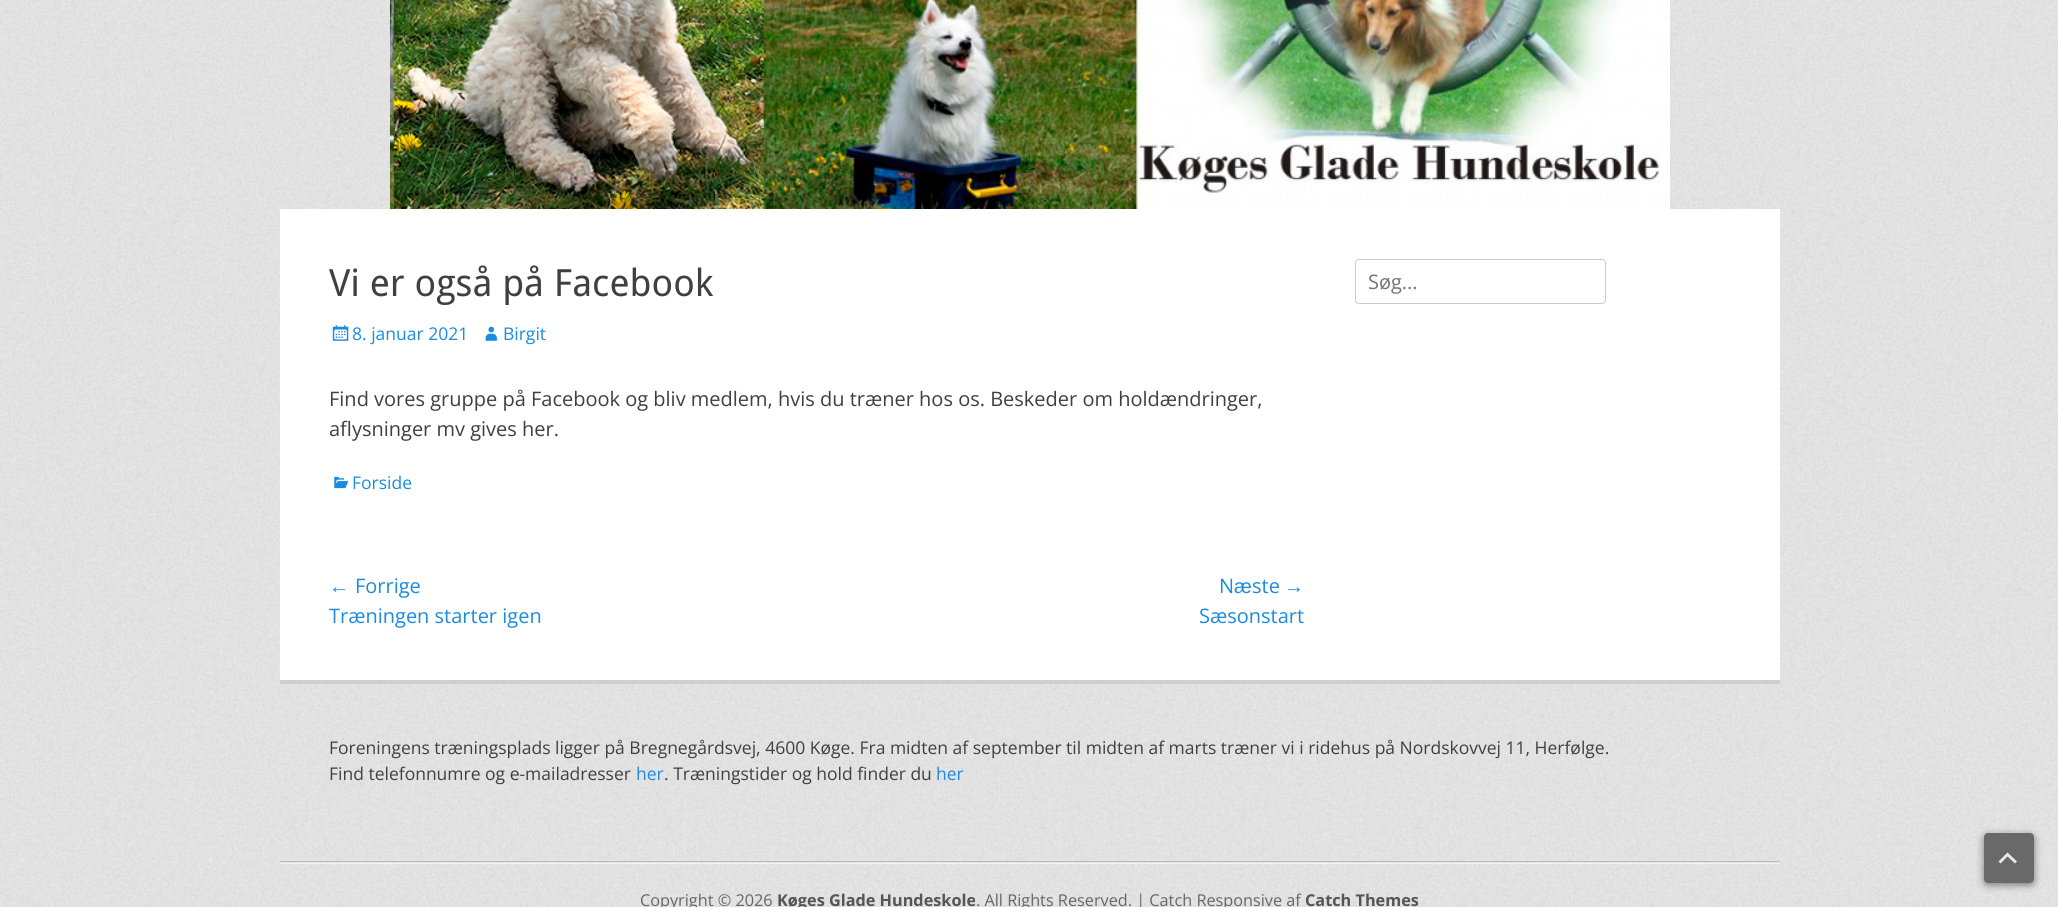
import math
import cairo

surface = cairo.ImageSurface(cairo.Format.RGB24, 2058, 907)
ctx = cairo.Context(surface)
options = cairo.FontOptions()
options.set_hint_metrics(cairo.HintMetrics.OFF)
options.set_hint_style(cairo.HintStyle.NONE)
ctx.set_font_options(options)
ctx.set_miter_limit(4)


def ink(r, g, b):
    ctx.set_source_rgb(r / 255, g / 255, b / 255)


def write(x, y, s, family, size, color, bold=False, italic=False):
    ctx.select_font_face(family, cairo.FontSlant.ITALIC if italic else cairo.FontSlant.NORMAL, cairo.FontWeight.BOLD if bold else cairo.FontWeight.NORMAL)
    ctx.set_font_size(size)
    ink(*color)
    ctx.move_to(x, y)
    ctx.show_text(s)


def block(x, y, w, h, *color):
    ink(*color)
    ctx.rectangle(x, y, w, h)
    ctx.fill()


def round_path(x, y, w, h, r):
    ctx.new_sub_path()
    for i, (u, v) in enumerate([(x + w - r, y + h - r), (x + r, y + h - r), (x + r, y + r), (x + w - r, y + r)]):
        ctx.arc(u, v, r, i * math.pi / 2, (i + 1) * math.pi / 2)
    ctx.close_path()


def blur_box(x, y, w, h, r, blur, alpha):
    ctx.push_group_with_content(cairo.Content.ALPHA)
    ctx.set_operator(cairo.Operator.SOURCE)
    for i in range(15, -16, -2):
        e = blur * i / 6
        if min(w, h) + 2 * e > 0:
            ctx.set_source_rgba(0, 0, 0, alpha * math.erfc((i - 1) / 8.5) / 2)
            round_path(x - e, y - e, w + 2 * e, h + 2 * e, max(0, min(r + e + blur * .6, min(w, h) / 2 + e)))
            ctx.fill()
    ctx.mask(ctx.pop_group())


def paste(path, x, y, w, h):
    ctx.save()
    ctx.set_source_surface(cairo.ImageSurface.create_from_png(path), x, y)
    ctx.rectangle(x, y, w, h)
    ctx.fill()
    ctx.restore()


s1 = dict(family="Droid Sans", size=37.5, color=(64, 64, 64))
s2 = dict(family="Open Sans", size=17.5, color=(27, 139, 224))
s3 = dict(family="Open Sans", size=20, color=(64, 64, 64))
s4 = dict(family="Liberation Sans", size=20, color=(27, 139, 224))
s5 = dict(family="Open Sans", size=20, color=(27, 139, 224))
s6 = dict(family="Open Sans", size=20, color=(117, 117, 117))
s7 = dict(family="Open Sans", size=17.5, color=(64, 64, 64))
s8 = dict(family="Open Sans", size=16.25, color=(102, 102, 102))
s9 = dict(family="Open Sans", size=16.25, color=(85, 85, 85), bold=True)

ink(255, 255, 255)
ctx.paint()
paste("pic1.png", 0, 0, 2058, 907)
paste("pic2.png", 390, 0, 1280, 209)
block(280, 209, 1500, 471, 255, 255, 255)
write(329, 296, "Vi er også på Facebook", **s1)
paste("pic3.png", 332, 325, 17, 16)
write(352, 340, "8. januar 2021", **s2)
paste("pic4.png", 485, 326, 12, 15)
write(503, 340, "Birgit", **s2)
write(329, 406, "Find vores gruppe på Facebook og bliv medlem, hvis du træner hos os. Beskeder om holdændringer,", **s3)
write(329, 436, "aflysninger mv gives her.", **s3)
paste("pic5.png", 334, 476, 15, 13)
write(352, 489, "Forside", **s2)
write(329, 593, "←", **s4)
write(355, 593, "Forrige", **s5)
write(329, 623, "Træningen starter igen", **s5)
write(1219, 593, "N", **s5)
write(1234, 593, "æ", **s4)
write(1252, 593, "ste", **s5)
write(1284, 593, "→", **s4)
write(1199, 623, "Sæsonstart", **s5)
round_path(1355.5, 259.5, 250, 44, 3.5)
ink(204, 204, 204)
ctx.set_line_width(1)
ctx.stroke()
write(1368, 289, "Søg...", **s6)
block(280, 680, 1500, 4, 207, 207, 207)
block(280, 861, 1500, 1, 188, 188, 188)
write(329, 754, "Foreningens træningsplads ligger på Bregnegårdsvej, 4600 Køge. Fra midten af september til midten af marts træner vi i ridehus på Nordskovvej 11, Herfølge.", **s7)
write(329, 780, "Find telefonnumre og e-mailadresser", **s7)
write(636, 780, "her", **s2)
write(664, 780, ". Træningstider og hold finder du", **s7)
write(936, 780, "her", **s2)
block(280, 863, 1500, 1, 244, 244, 244)
write(640, 906, "Copyright © 2026", **s8)
write(777, 906, "Køges Glade Hundeskole", **s9)
write(976, 906, ". All Rights Reserved. | Catch Responsive af", **s8)
write(1305, 906, "Catch Themes", **s9)
ctx.save()
ctx.set_fill_rule(cairo.FillRule.EVEN_ODD)
ctx.new_path()
ctx.move_to(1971, 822)
ctx.line_to(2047, 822)
ctx.line_to(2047, 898)
ctx.line_to(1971, 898)
ctx.close_path()
ctx.move_to(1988, 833)
ctx.line_to(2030, 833)
ctx.curve_to(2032, 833, 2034, 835, 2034, 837)
ctx.line_to(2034, 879)
ctx.curve_to(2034, 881, 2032, 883, 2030, 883)
ctx.line_to(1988, 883)
ctx.curve_to(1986, 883, 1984, 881, 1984, 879)
ctx.line_to(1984, 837)
ctx.curve_to(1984, 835, 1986, 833, 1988, 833)
ctx.close_path()
ctx.clip()
ink(0, 0, 0)
blur_box(1984, 835, 50, 50, 4, 4, 0.48)
ctx.restore()
ctx.set_source_rgba(0.4, 0.4, 0.4, 0.97)
round_path(1984, 833, 50, 50, 4)
ctx.fill()
ink(233, 233, 233)
ctx.new_path()
ctx.move_to(2015, 863.5)
ctx.line_to(2007.5, 856.5)
ctx.line_to(2000.5, 863.5)
ctx.line_to(1998.5, 861.5)
ctx.line_to(2007.5, 852.5)
ctx.line_to(2017, 861.5)
ctx.close_path()
ctx.fill()
surface.write_to_png("screenshot.png")
